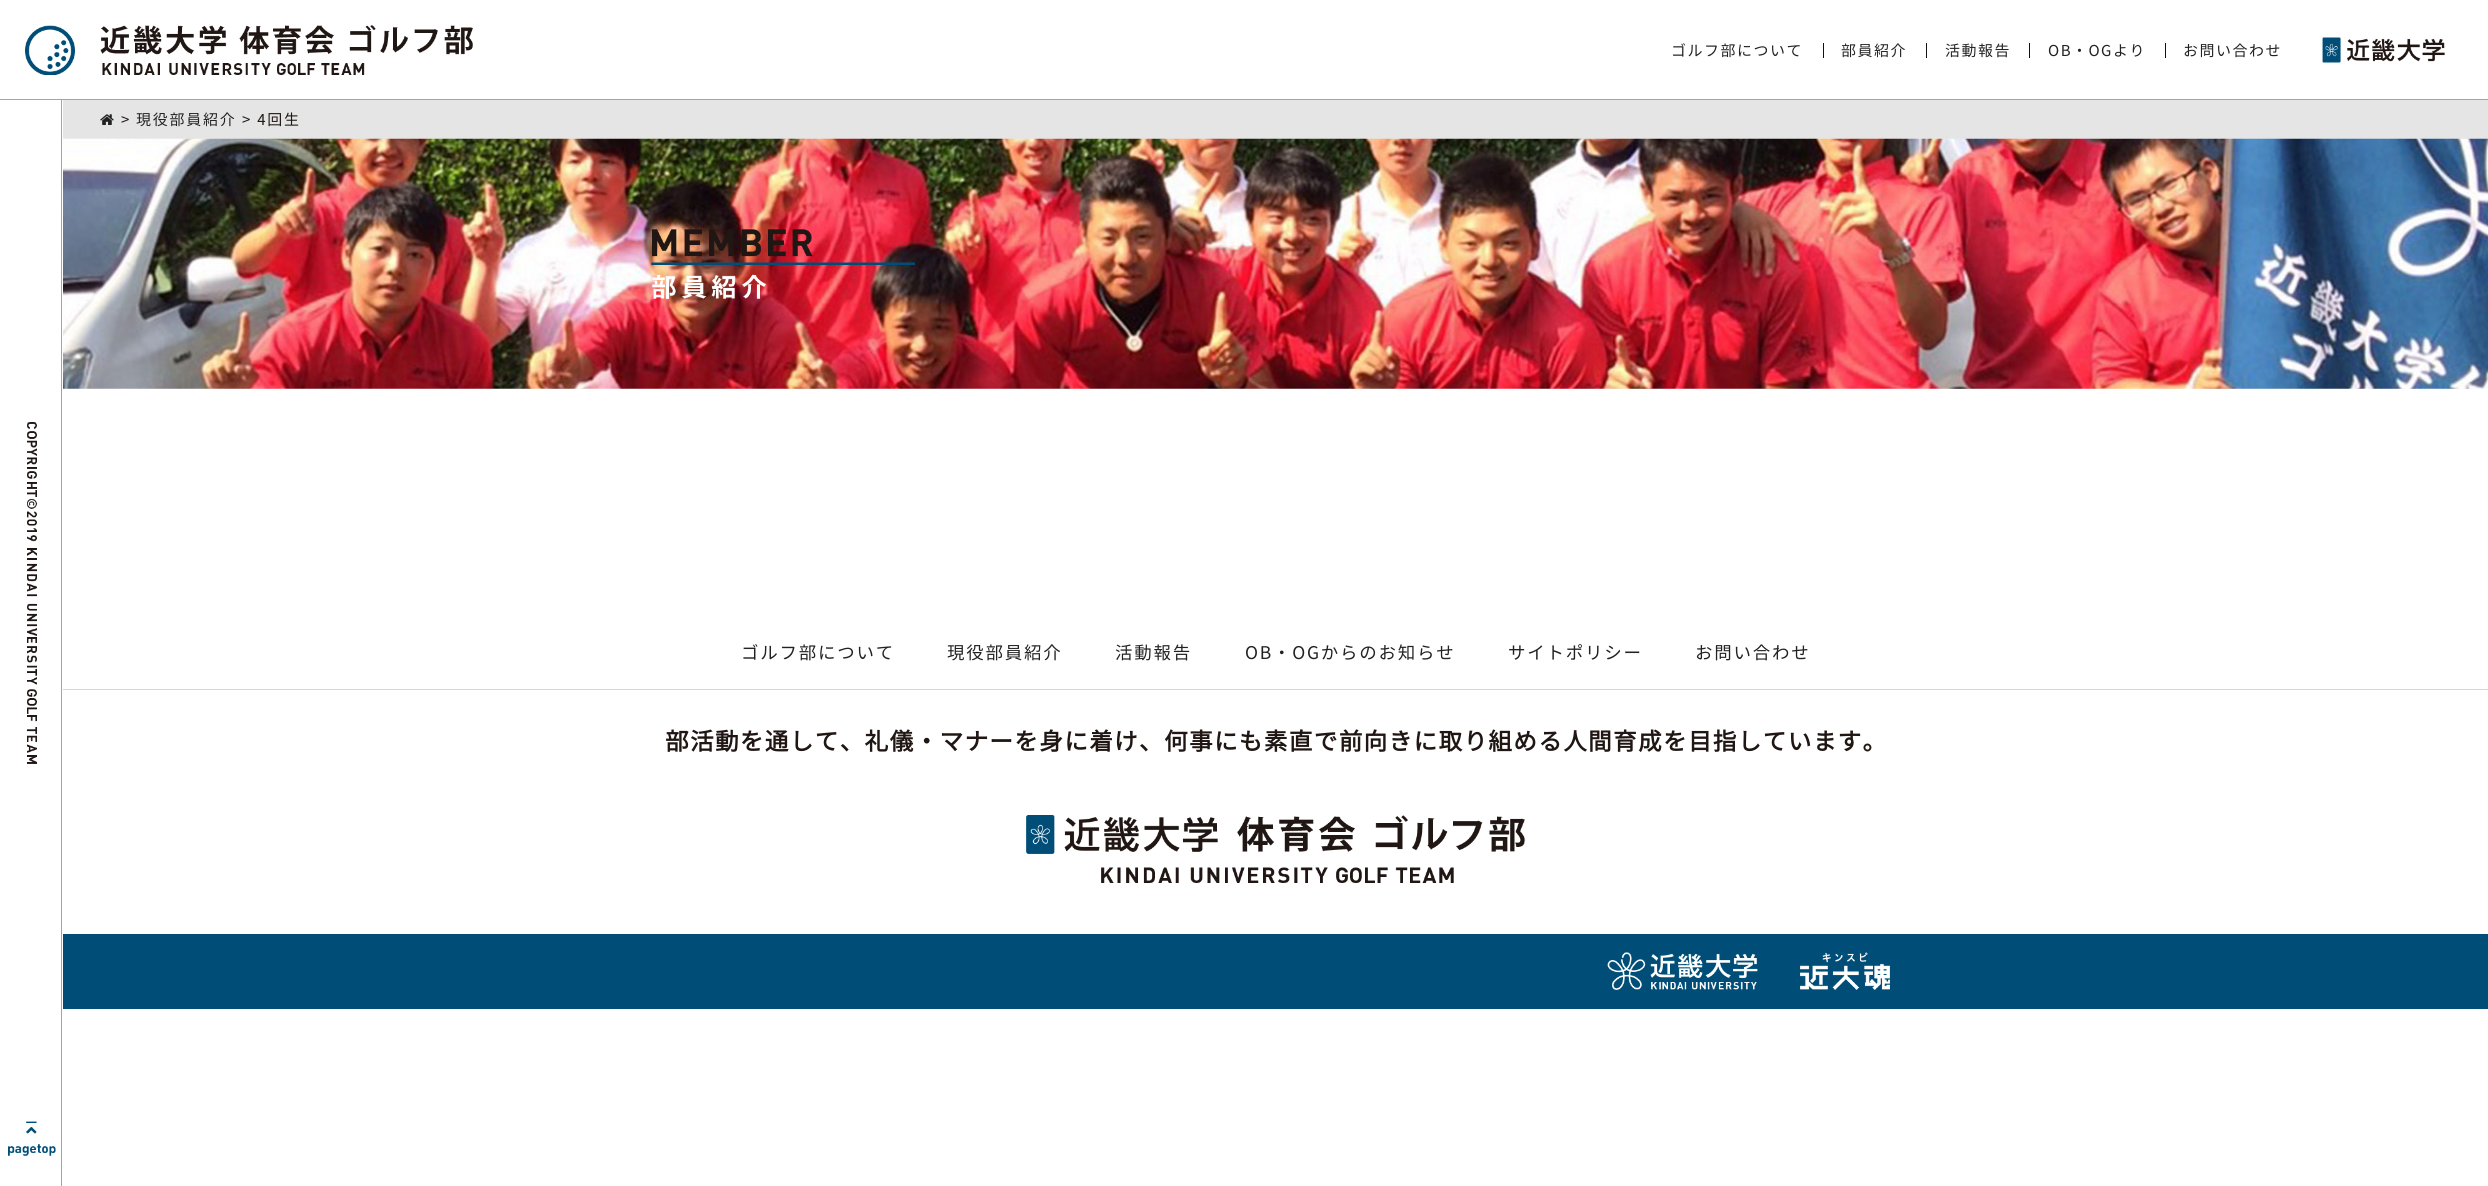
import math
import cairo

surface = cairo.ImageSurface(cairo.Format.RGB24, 2488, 1186)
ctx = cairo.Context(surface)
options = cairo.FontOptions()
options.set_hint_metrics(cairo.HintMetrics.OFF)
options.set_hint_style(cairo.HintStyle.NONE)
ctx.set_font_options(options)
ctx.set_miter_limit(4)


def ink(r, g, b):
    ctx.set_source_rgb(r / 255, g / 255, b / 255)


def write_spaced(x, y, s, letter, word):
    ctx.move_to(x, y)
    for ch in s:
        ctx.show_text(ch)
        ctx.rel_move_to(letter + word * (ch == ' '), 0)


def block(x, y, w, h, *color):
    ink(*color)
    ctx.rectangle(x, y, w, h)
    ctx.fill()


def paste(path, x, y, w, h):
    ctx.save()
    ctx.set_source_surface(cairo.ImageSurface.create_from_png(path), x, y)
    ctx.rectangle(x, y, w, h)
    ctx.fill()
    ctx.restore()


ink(255, 255, 255)
ctx.paint()
block(0, 99, 2488, 1, 166, 162, 161)
paste("pic1.png", 25, 25, 448, 50)
ctx.select_font_face("Noto Sans CJK JP")
ctx.set_font_size(15)
ink(34, 34, 34)
write_spaced(1671, 56, "ゴルフ部について", 1.5, 0)
block(1823, 43, 1, 15, 17, 17, 17)
ink(34, 34, 34)
write_spaced(1841, 56, "部員紹介", 1.5, 0)
block(1926, 43, 1, 15, 17, 17, 17)
ink(34, 34, 34)
write_spaced(1945, 56, "活動報告", 1.5, 0)
block(2029, 43, 1, 15, 17, 17, 17)
ink(34, 34, 34)
write_spaced(2048, 56, "OB・OGより", 1.5, 0)
block(2165, 43, 1, 15, 17, 17, 17)
ink(34, 34, 34)
write_spaced(2183, 56, "お問い合わせ", 1.5, 0)
paste("pic2.png", 2322, 37, 123, 26)
block(61, 100, 1, 1086, 166, 162, 161)
paste("pic3.png", 27, 422, 10, 342)
paste("pic4.png", 8, 1121, 48, 36)
block(63, 100, 2425, 39, 229, 229, 229)
paste("pic5.png", 100, 114, 14, 11)
ink(32, 23, 20)
write_spaced(121, 125, ">", 1.75, 0)
ink(34, 34, 34)
write_spaced(136, 125, "現役部員紹介", 1.75, 0)
ink(32, 23, 20)
write_spaced(242, 125, "> 4回生", 1.75, 0)
paste("pic6.png", 63, 138, 2425, 251)
paste("pic7.png", 651, 229, 264, 70)
block(63, 689, 2425, 1, 214, 214, 214)
ctx.set_font_size(17.5)
ink(34, 34, 34)
write_spaced(741, 659, "ゴルフ部について", 1.75, 0)
write_spaced(947, 659, "現役部員紹介", 1.75, 0)
write_spaced(1115, 659, "活動報告", 1.75, 0)
write_spaced(1245, 659, "OB・OGからのお知らせ", 1.75, 0)
write_spaced(1508, 659, "サイトポリシー", 1.75, 0)
write_spaced(1695, 659, "お問い合わせ", 1.75, 0)
ctx.select_font_face("Noto Sans CJK JP", cairo.FontSlant.NORMAL, cairo.FontWeight.BOLD)
ctx.set_font_size(23.75)
ink(32, 23, 20)
write_spaced(665, 750, "部活動を通して、礼儀・マナーを身に着け、何事にも素直で前向きに取り組める人間育成を目指しています。", 1.2, 0)
paste("pic8.png", 1026, 815, 499, 68)
block(63, 934, 2425, 75, 0, 78, 120)
paste("pic9.png", 1607, 952, 151, 38)
paste("pic10.png", 1800, 952, 90, 38)
surface.write_to_png("screenshot.png")
